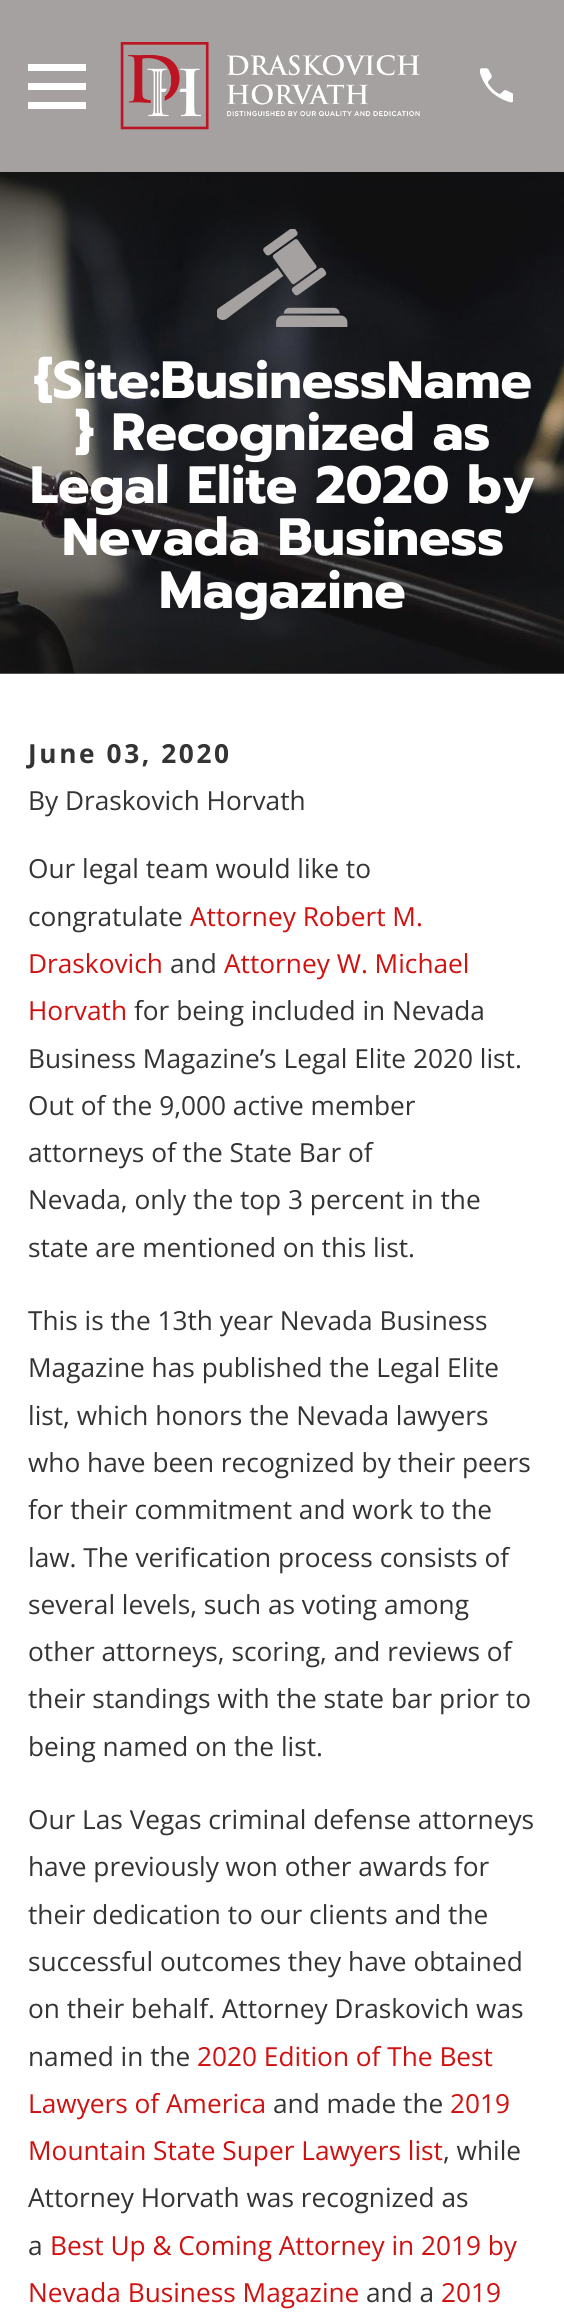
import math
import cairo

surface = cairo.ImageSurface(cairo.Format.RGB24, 564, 2315)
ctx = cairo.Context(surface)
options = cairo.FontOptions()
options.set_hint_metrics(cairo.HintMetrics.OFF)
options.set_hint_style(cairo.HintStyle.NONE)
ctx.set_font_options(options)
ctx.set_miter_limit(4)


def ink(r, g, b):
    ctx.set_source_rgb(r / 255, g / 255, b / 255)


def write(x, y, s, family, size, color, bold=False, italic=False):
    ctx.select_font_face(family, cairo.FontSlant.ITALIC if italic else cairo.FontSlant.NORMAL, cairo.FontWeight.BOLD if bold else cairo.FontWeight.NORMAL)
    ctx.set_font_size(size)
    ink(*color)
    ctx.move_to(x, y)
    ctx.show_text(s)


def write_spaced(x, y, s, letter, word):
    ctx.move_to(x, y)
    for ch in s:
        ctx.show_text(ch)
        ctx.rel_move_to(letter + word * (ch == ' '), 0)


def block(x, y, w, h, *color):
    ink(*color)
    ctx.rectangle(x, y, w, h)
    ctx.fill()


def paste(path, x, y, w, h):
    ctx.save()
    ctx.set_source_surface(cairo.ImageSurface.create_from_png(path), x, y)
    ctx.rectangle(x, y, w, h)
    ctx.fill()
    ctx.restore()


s1 = dict(family="Prompt", size=52.5, color=(255, 255, 255), bold=True)
s2 = dict(family="Open Sans", size=26.25, color=(52, 52, 52))
s3 = dict(family="Open Sans", size=26.25, color=(209, 16, 16))

ink(255, 255, 255)
ctx.paint()
block(0, 0, 564, 674, 165, 161, 161)
ink(255, 255, 255)
ctx.new_path()
ctx.move_to(28, 64)
ctx.line_to(28, 71)
ctx.line_to(86, 71)
ctx.line_to(86, 64)
ctx.close_path()
ctx.move_to(28, 83)
ctx.line_to(28, 90)
ctx.line_to(86, 90)
ctx.line_to(86, 83)
ctx.close_path()
ctx.move_to(28, 102)
ctx.line_to(28, 109)
ctx.line_to(86, 109)
ctx.line_to(86, 102)
ctx.close_path()
ctx.fill()
paste("pic1.png", 120, 42, 300, 88)
paste("pic2.png", 480, 68, 33, 35)
paste("pic3.png", 0, 172, 564, 502)
paste("pic4.png", 217, 229, 131, 98)
write(34, 398, "{Site:BusinessName", **s1)
write(75, 450, "} Recognized as", **s1)
write(30, 503, "Legal Elite 2020 by", **s1)
write(62, 555, "Nevada Business", **s1)
write(159, 608, "Magazine", **s1)
ctx.select_font_face("Open Sans", cairo.FontSlant.NORMAL, cairo.FontWeight.BOLD)
ctx.set_font_size(26.25)
ink(52, 52, 52)
write_spaced(28, 763, "June 03, 2020", 2.6, 0)
write(28, 810, "By Draskovich Horvath", **s2)
write(28, 878, "Our legal team would like to", **s2)
write(28, 926, "congratulate", **s2)
write(190, 926, "Attorney Robert M.", **s3)
write(28, 973, "Draskovich", **s3)
write(170, 973, "and", **s2)
write(224, 973, "Attorney W. Michael", **s3)
write(28, 1020, "Horvath", **s3)
write(134, 1020, "for being included in Nevada", **s2)
write(28, 1068, "Business Magazine’s Legal Elite 2020 list.", **s2)
write(28, 1115, "Out of the 9,000 active member", **s2)
write(28, 1162, "attorneys of the State Bar of", **s2)
write(28, 1209, "Nevada, only the top 3 percent in the", **s2)
write(28, 1257, "state are mentioned on this list.", **s2)
write(28, 1330, "This is the 13th year Nevada Business", **s2)
write(28, 1377, "Magazine has published the Legal Elite", **s2)
write(28, 1425, "list, which honors the Nevada lawyers", **s2)
write(28, 1472, "who have been recognized by their peers", **s2)
write(28, 1519, "for their commitment and work to the", **s2)
write(28, 1567, "law. The verification process consists of", **s2)
write(28, 1614, "several levels, such as voting among", **s2)
write(28, 1661, "other attorneys, scoring, and reviews of", **s2)
write(28, 1708, "their standings with the state bar prior to", **s2)
write(28, 1756, "being named on the list.", **s2)
write(28, 1829, "Our Las Vegas criminal defense attorneys", **s2)
write(28, 1876, "have previously won other awards for", **s2)
write(28, 1924, "their dedication to our clients and the", **s2)
write(28, 1971, "successful outcomes they have obtained", **s2)
write(28, 2018, "on their behalf. Attorney Draskovich was", **s2)
write(28, 2066, "named in the", **s2)
write(197, 2066, "2020 Edition of The Best", **s3)
write(28, 2113, "Lawyers of America", **s3)
write(273, 2113, "and made the", **s2)
write(450, 2113, "2019", **s3)
write(28, 2160, "Mountain State Super Lawyers list", **s3)
write(443, 2160, ", while", **s2)
write(28, 2207, "Attorney Horvath was recognized as", **s2)
write(28, 2255, "a", **s2)
write(50, 2255, "Best Up & Coming Attorney in 2019 by", **s3)
write(28, 2302, "Nevada Business Magazine", **s3)
write(366, 2302, "and a", **s2)
write(441, 2302, "2019", **s3)
surface.write_to_png("screenshot.png")
